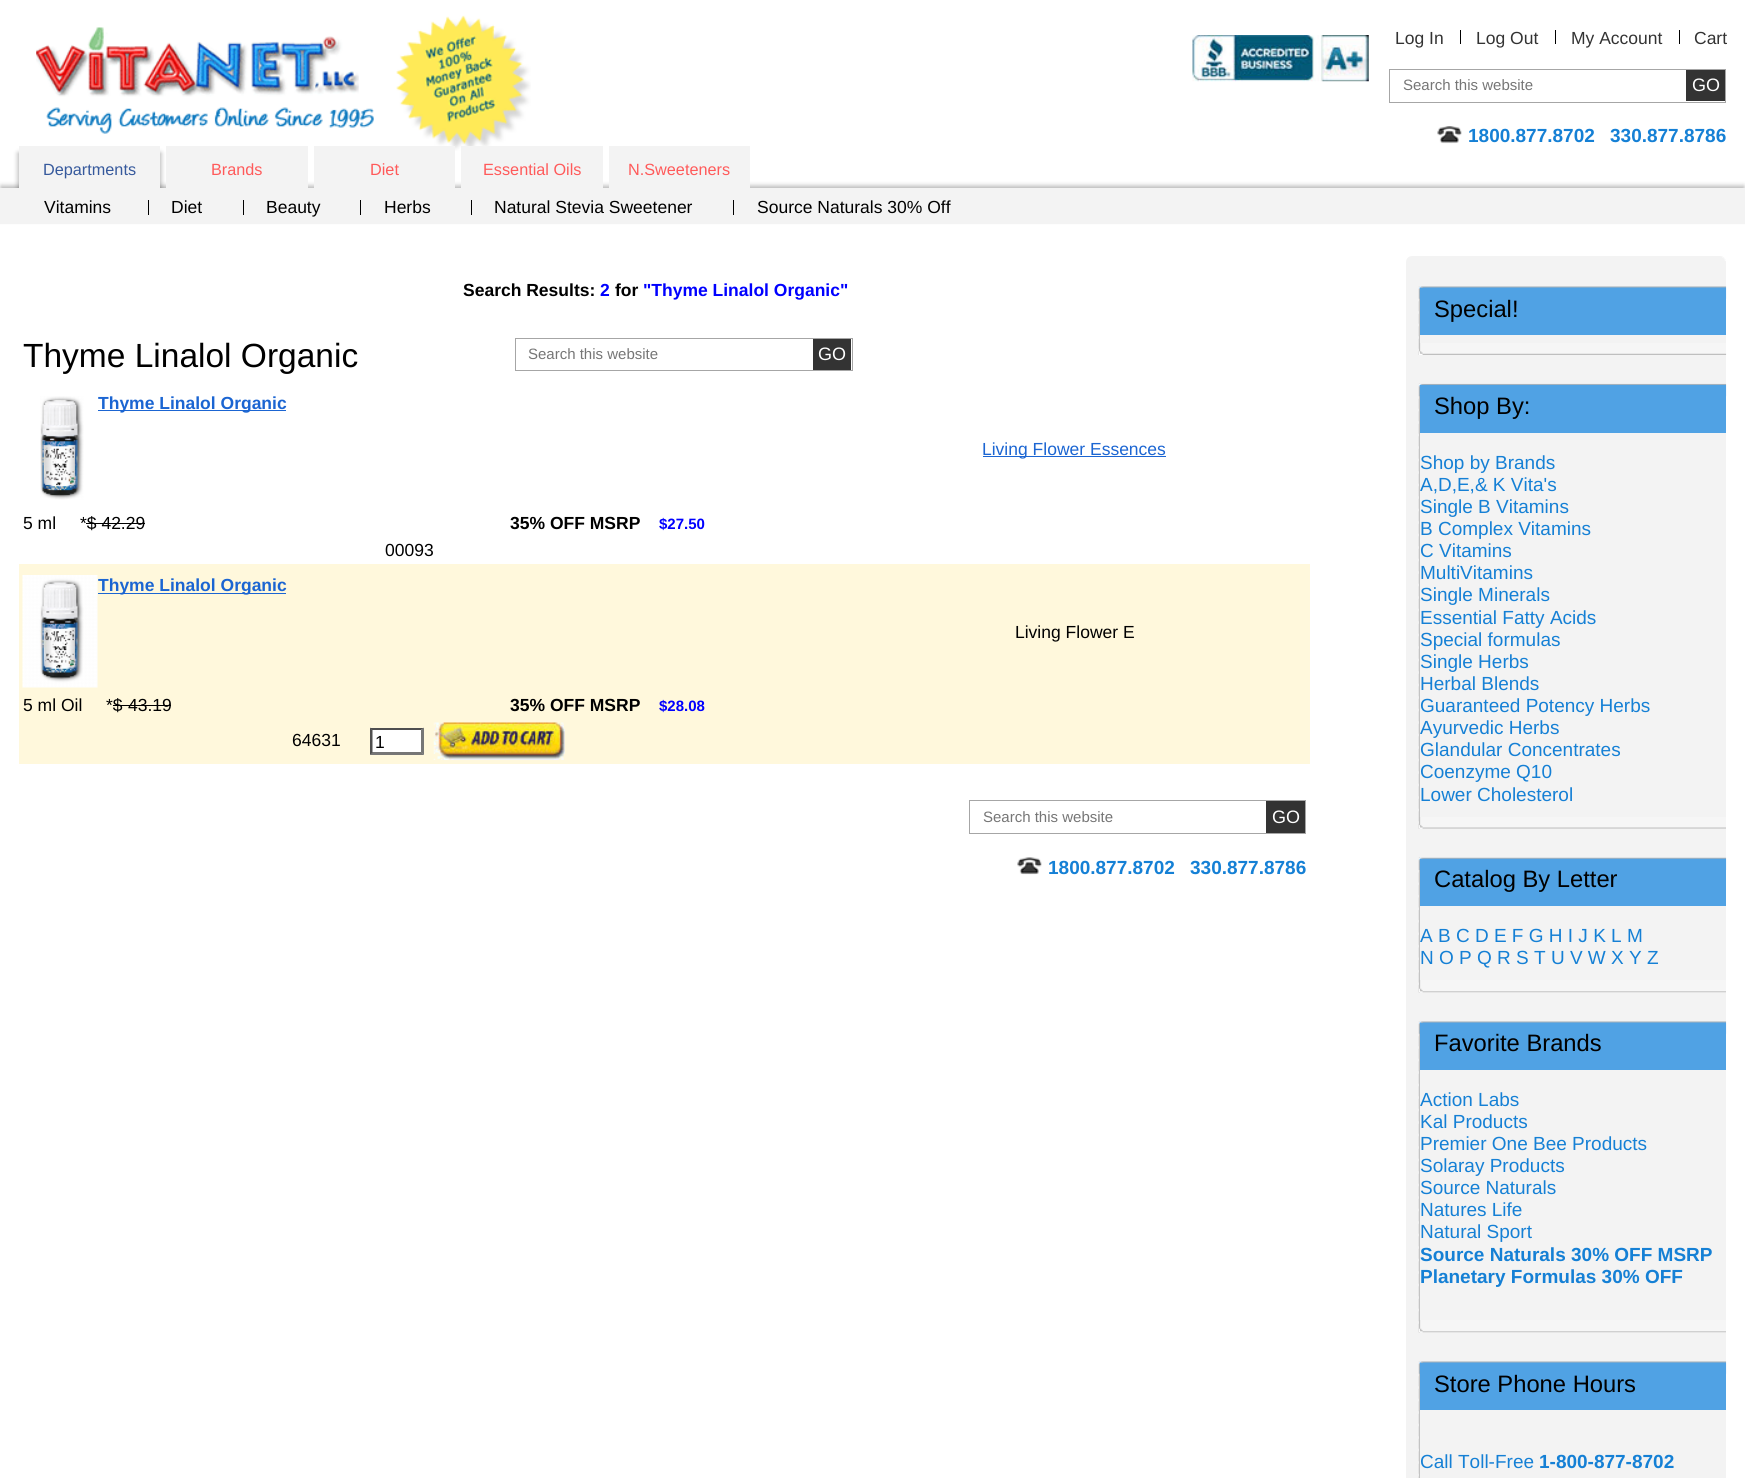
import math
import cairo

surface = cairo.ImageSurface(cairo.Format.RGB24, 1745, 1478)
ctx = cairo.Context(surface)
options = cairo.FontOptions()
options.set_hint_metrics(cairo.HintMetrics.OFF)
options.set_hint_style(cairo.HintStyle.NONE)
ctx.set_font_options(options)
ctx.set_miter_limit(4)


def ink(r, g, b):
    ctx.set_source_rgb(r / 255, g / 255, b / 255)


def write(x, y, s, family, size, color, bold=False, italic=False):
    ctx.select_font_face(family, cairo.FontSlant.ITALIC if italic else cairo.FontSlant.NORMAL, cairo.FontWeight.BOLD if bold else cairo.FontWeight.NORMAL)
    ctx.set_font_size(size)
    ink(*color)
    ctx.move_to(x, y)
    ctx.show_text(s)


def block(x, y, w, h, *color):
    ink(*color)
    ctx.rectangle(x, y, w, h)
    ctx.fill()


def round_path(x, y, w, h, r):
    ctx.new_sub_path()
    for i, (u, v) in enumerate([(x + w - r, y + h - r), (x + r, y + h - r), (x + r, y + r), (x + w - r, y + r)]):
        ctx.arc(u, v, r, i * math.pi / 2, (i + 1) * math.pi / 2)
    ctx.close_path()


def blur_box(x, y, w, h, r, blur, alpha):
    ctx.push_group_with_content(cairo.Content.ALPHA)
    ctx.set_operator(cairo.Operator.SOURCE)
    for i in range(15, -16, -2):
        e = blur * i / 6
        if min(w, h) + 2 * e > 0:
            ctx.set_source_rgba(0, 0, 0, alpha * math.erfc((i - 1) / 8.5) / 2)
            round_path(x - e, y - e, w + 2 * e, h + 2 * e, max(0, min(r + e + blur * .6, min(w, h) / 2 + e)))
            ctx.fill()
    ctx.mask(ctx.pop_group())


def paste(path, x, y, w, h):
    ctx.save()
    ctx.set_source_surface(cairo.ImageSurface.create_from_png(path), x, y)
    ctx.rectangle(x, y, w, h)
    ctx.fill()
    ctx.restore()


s1 = dict(family="Liberation Sans", size=17.5, color=(51, 51, 51))
s2 = dict(family="Liberation Sans", size=15, color=(118, 118, 118))
s3 = dict(family="Liberation Sans", size=18, color=(255, 255, 255))
s4 = dict(family="Liberation Sans", size=19, color=(21, 128, 213), bold=True)
s5 = dict(family="Liberation Sans", size=16.25, color=(54, 89, 156))
s6 = dict(family="Liberation Sans", size=16.25, color=(255, 90, 90))
s7 = dict(family="Liberation Sans", size=17.5, color=(0, 0, 0))
s8 = dict(family="Liberation Sans", size=17.5, color=(0, 0, 0), bold=True)
s9 = dict(family="Liberation Sans", size=17.5, color=(0, 0, 255), bold=True)
s10 = dict(family="Liberation Sans", size=33.5, color=(0, 0, 0))
s11 = dict(family="Liberation Sans", size=17.5, color=(27, 101, 210), bold=True)
s12 = dict(family="Liberation Sans", size=17.5, color=(27, 101, 210))
s13 = dict(family="Liberation Sans", size=15, color=(0, 0, 255), bold=True)
s14 = dict(family="Liberation Sans", size=23.75, color=(0, 0, 0))
s15 = dict(family="Liberation Sans", size=19, color=(21, 128, 213))

ink(255, 255, 255)
ctx.paint()
paste("pic1.png", 36, 27, 338, 107)
paste("pic2.png", 396, 15, 135, 136)
paste("pic3.png", 1192, 35, 177, 47)
write(1395, 44, "Log In", **s1)
block(1460, 30, 1, 14, 0, 0, 0)
write(1476, 44, "Log Out", **s1)
block(1555, 30, 1, 14, 0, 0, 0)
write(1571, 44, "My Account", **s1)
block(1679, 30, 1, 14, 0, 0, 0)
write(1694, 44, "Cart", **s1)
ctx.rectangle(1389.5, 69.5, 336, 33)
ink(166, 166, 166)
ctx.set_line_width(1)
ctx.stroke()
write(1403, 90, "Search this website", **s2)
block(1686, 70, 39, 31, 51, 51, 51)
write(1692, 91, "GO", **s3)
paste("pic4.png", 1437, 126, 25, 18)
write(1468, 142, "1800.877.8702", **s4)
write(1610, 142, "330.877.8786", **s4)
ink(0, 0, 0)
blur_box(18, 153, 12, 37, 0, 2.5, 0.3)
blur_box(149, 153, 12, 37, 0, 2.5, 0.3)
blur_box(1, 186, 1743, 34, 0, 2.5, 0.3)
block(19, 146, 141, 42, 243, 243, 243)
write(43, 175, "Departments", **s5)
block(166, 146, 142, 42, 243, 243, 243)
write(211, 175, "Brands", **s6)
block(314, 146, 141, 42, 243, 243, 243)
write(370, 175, "Diet", **s6)
block(461, 146, 142, 42, 243, 243, 243)
write(483, 175, "Essential Oils", **s6)
block(609, 146, 141, 42, 243, 243, 243)
write(628, 175, "N.Sweeteners", **s6)
block(0, 188, 1745, 36, 243, 243, 243)
write(44, 213, "Vitamins", **s7)
block(148, 200, 1, 15, 0, 0, 0)
write(171, 213, "Diet", **s7)
block(243, 200, 1, 15, 0, 0, 0)
write(266, 213, "Beauty", **s7)
block(360, 200, 1, 15, 0, 0, 0)
write(384, 213, "Herbs", **s7)
block(471, 200, 1, 15, 0, 0, 0)
write(494, 213, "Natural Stevia Sweetener", **s7)
block(733, 200, 1, 15, 0, 0, 0)
write(757, 213, "Source Naturals 30% Off", **s7)
write(463, 296, "Search Results:", **s8)
write(600, 296, "2", **s9)
write(615, 296, "for", **s8)
write(643, 296, "\"Thyme Linalol Organic\"", **s9)
write(23, 367, "Thyme Linalol Organic", **s10)
ctx.rectangle(515.5, 338.5, 337, 32)
ink(166, 166, 166)
ctx.stroke()
write(528, 359, "Search this website", **s2)
block(813, 339, 38, 31, 51, 51, 51)
write(818, 360, "GO", **s3)
paste("pic5.png", 40, 396, 44, 104)
block(98, 410, 188, 1, 27, 101, 210)
write(98, 409, "Thyme Linalol Organic", **s11)
block(983, 456, 183, 1, 27, 101, 210)
write(982, 455, "Living Flower Essences", **s12)
write(23, 529, "5 ml", **s7)
write(80, 529, "*$ 42.29", **s7)
block(86, 523, 59, 1, 0, 0, 0)
write(510, 529, "35% OFF MSRP", **s8)
write(659, 529, "$27.50", **s13)
write(385, 556, "00093", **s7)
block(19, 564, 1291, 200, 255, 248, 220)
paste("pic6.png", 22, 575, 76, 113)
block(98, 593, 188, 1, 27, 101, 210)
write(98, 591, "Thyme Linalol Organic", **s11)
write(1015, 638, "Living Flower E", **s7)
write(23, 711, "5 ml Oil", **s7)
write(106, 711, "*$", **s7)
block(113, 705, 15, 1, 0, 0, 0)
write(128, 711, "43.19", **s7)
block(128, 705, 43, 1, 0, 0, 0)
write(510, 711, "35% OFF MSRP", **s8)
write(659, 711, "$28.08", **s13)
write(292, 746, "64631", **s7)
block(370, 728, 54, 27, 255, 255, 255)
ink(79, 79, 79)
ctx.new_path()
ctx.move_to(370, 728)
ctx.line_to(424, 728)
ctx.line_to(421, 730)
ctx.line_to(372, 730)
ctx.close_path()
ctx.fill()
ink(118, 118, 118)
ctx.new_path()
ctx.move_to(424, 727.5)
ctx.line_to(424, 755)
ctx.line_to(421, 752.5)
ctx.line_to(421, 730)
ctx.close_path()
ctx.fill()
ctx.new_path()
ctx.move_to(424, 755)
ctx.line_to(370, 755)
ctx.line_to(372, 752)
ctx.line_to(421, 752)
ctx.close_path()
ctx.fill()
ink(79, 79, 79)
ctx.new_path()
ctx.move_to(370, 755)
ctx.line_to(370, 727.5)
ctx.line_to(372.5, 730)
ctx.line_to(372.5, 752.5)
ctx.close_path()
ctx.fill()
write(375, 748, "1", **s7)
paste("pic7.png", 433, 722, 132, 38)
ctx.rectangle(969.5, 800.5, 336, 33)
ink(166, 166, 166)
ctx.stroke()
write(983, 822, "Search this website", **s2)
block(1266, 801, 39, 32, 51, 51, 51)
write(1272, 823, "GO", **s3)
paste("pic8.png", 1017, 857, 25, 18)
write(1048, 874, "1800.877.8702", **s4)
write(1190, 874, "330.877.8786", **s4)
ink(243, 243, 243)
round_path(1406, 256, 320, 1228, 6)
ctx.fill()
paste("pic9.png", 1722, 257, 4, 4)
paste("pic10.png", 1418, 286, 2, 69)
paste("pic11.png", 1419, 286, 308, 13)
paste("pic12.png", 1419, 343, 308, 12)
block(1420, 288, 306, 47, 80, 162, 228)
write(1434, 317, "Special!", **s14)
paste("pic13.png", 1418, 383, 2, 446)
paste("pic14.png", 1419, 383, 308, 14)
paste("pic15.png", 1419, 817, 307, 12)
block(1420, 385, 306, 48, 80, 162, 228)
write(1434, 414, "Shop By:", **s14)
write(1420, 469, "Shop by Brands", **s15)
write(1420, 491, "A,D,E,& K Vita's", **s15)
write(1420, 513, "Single B Vitamins", **s15)
write(1420, 535, "B Complex Vitamins", **s15)
write(1420, 557, "C Vitamins", **s15)
write(1420, 579, "MultiVitamins", **s15)
write(1420, 601, "Single Minerals", **s15)
write(1420, 624, "Essential Fatty Acids", **s15)
write(1420, 646, "Special formulas", **s15)
write(1420, 668, "Single Herbs", **s15)
write(1420, 690, "Herbal Blends", **s15)
write(1420, 712, "Guaranteed Potency Herbs", **s15)
write(1420, 734, "Ayurvedic Herbs", **s15)
write(1420, 756, "Glandular Concentrates", **s15)
write(1420, 778, "Coenzyme Q10", **s15)
write(1420, 801, "Lower Cholesterol", **s15)
paste("pic16.png", 1418, 857, 2, 136)
paste("pic17.png", 1418, 857, 309, 13)
paste("pic18.png", 1419, 980, 307, 13)
block(1420, 859, 306, 47, 80, 162, 228)
write(1434, 887, "Catalog By Letter", **s14)
write(1420, 942, "A B C D E F G H I J K L M", **s15)
write(1420, 964, "N O P Q R S T U V W X Y Z", **s15)
paste("pic19.png", 1418, 1021, 2, 312)
paste("pic11.png", 1419, 1021, 308, 13)
paste("pic18.png", 1419, 1320, 307, 13)
block(1420, 1023, 306, 47, 80, 162, 228)
write(1434, 1051, "Favorite Brands", **s14)
write(1420, 1106, "Action Labs", **s15)
write(1420, 1128, "Kal Products", **s15)
write(1420, 1150, "Premier One Bee Products", **s15)
write(1420, 1172, "Solaray Products", **s15)
write(1420, 1194, "Source Naturals", **s15)
write(1420, 1216, "Natures Life", **s15)
write(1420, 1238, "Natural Sport", **s15)
write(1420, 1261, "Source Naturals 30% OFF MSRP", **s4)
write(1420, 1283, "Planetary Formulas 30% OFF", **s4)
paste("pic20.png", 1418, 1361, 2, 117)
paste("pic11.png", 1419, 1361, 308, 13)
block(1420, 1363, 306, 47, 80, 162, 228)
write(1434, 1392, "Store Phone Hours", **s14)
write(1420, 1468, "Call Toll-Free", **s15)
write(1539, 1468, "1-800-877-8702", **s4)
surface.write_to_png("screenshot.png")
